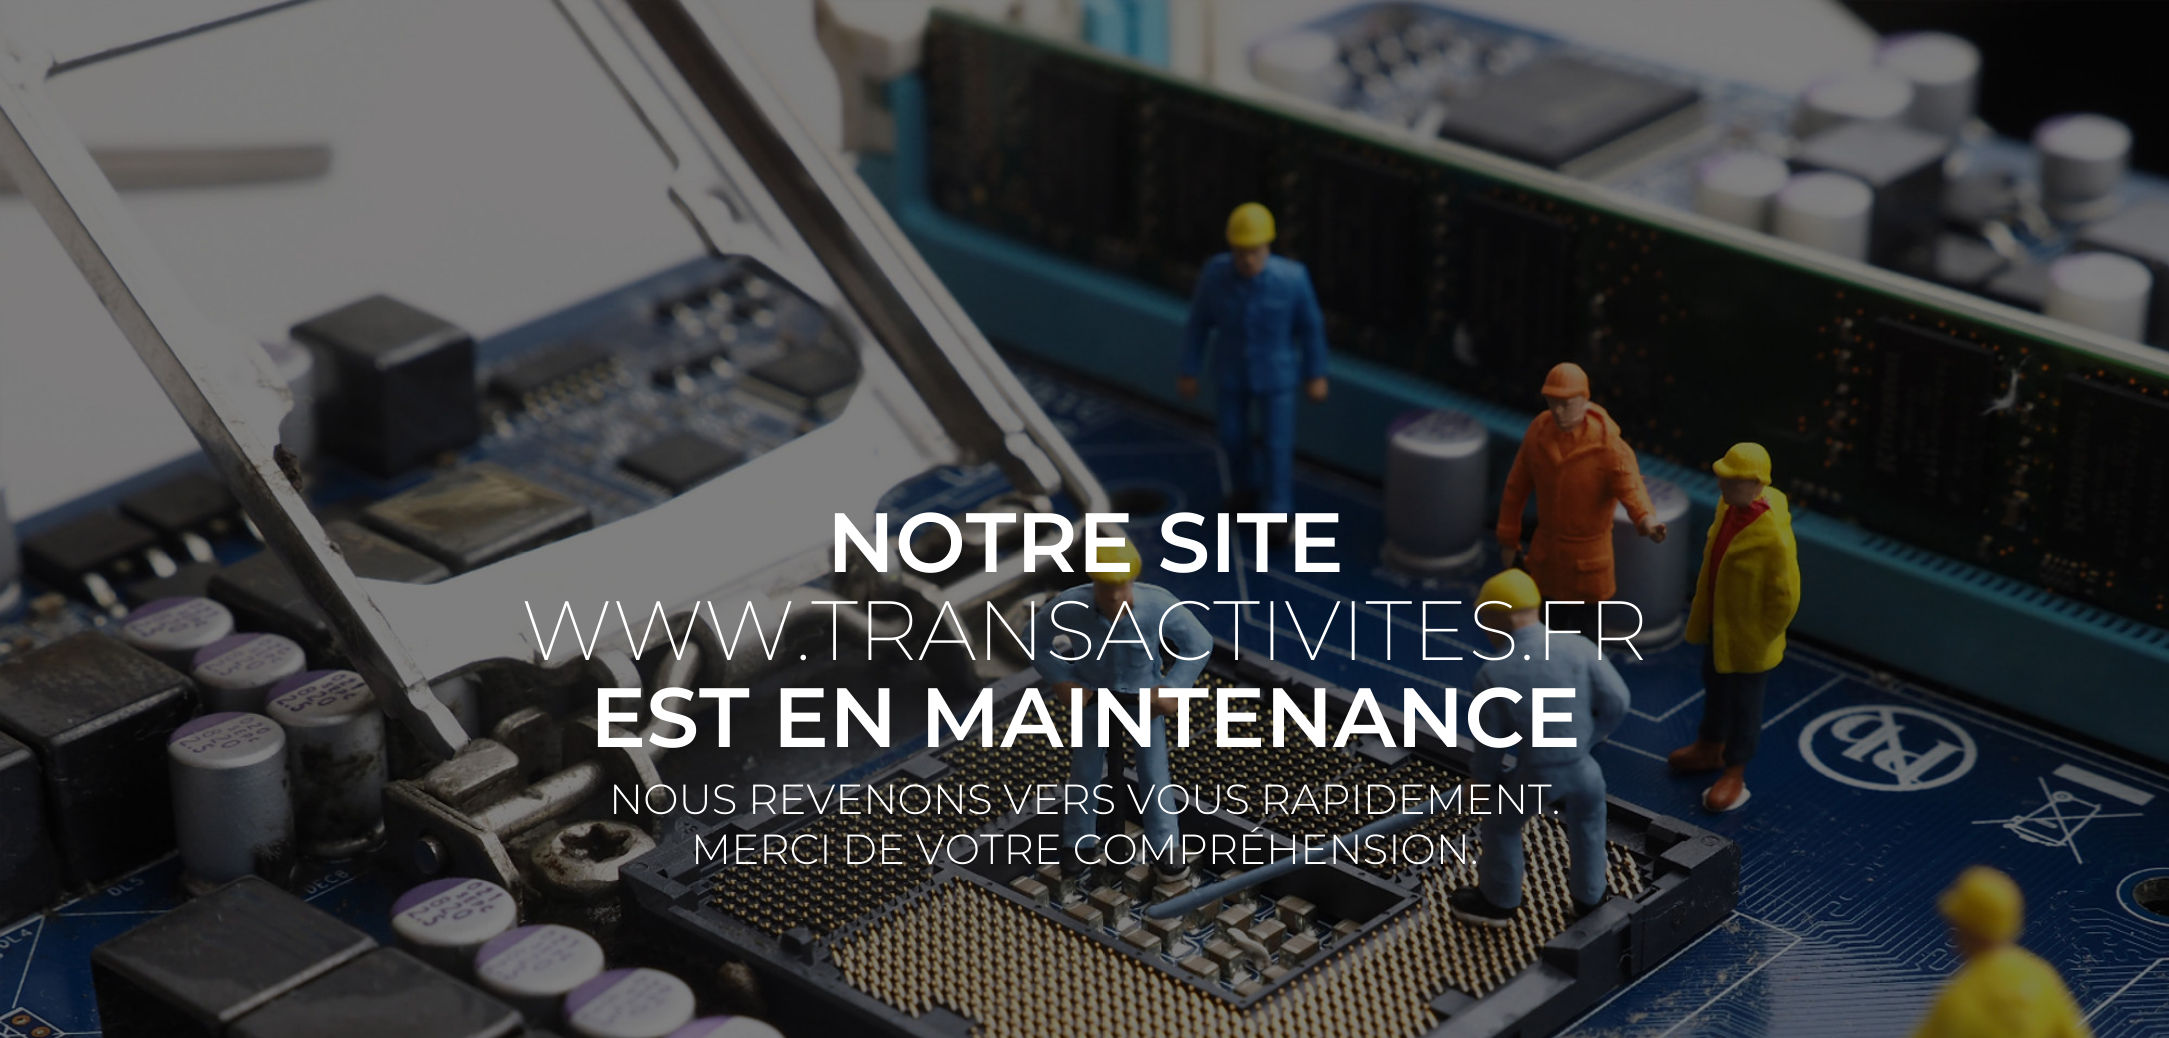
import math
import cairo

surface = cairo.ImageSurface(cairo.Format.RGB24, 2169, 1038)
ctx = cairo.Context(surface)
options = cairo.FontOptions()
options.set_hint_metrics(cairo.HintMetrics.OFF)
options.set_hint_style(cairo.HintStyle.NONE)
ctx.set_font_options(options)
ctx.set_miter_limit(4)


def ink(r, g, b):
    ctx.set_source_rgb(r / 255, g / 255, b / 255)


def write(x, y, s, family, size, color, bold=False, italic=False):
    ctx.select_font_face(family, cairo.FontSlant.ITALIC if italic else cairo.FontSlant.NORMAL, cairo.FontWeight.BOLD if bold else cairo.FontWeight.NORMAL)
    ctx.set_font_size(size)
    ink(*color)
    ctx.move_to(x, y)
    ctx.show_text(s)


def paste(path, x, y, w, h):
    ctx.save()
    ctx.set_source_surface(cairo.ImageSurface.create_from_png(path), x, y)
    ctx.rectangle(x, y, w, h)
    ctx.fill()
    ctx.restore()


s1 = dict(family="Montserrat SemiBold", size=84, color=(255, 255, 255))
s2 = dict(family="Montserrat ExtraLight", size=84, color=(255, 255, 255))
s3 = dict(family="Montserrat Light", size=42, color=(255, 255, 255))

ink(255, 255, 255)
ctx.paint()
paste("pic1.png", 0, 0, 2169, 1038)
write(827, 572, "NOTRE SITE", **s1)
write(521, 660, "WWW.TRANSACTIVITES.FR", **s2)
write(590, 747, "EST EN MAINTENANCE", **s1)
write(609, 814, "NOUS REVENONS VERS VOUS RAPIDEMENT.", **s3)
write(691, 864, "MERCI DE VOTRE COMPRÉHENSION.", **s3)
surface.write_to_png("screenshot.png")
